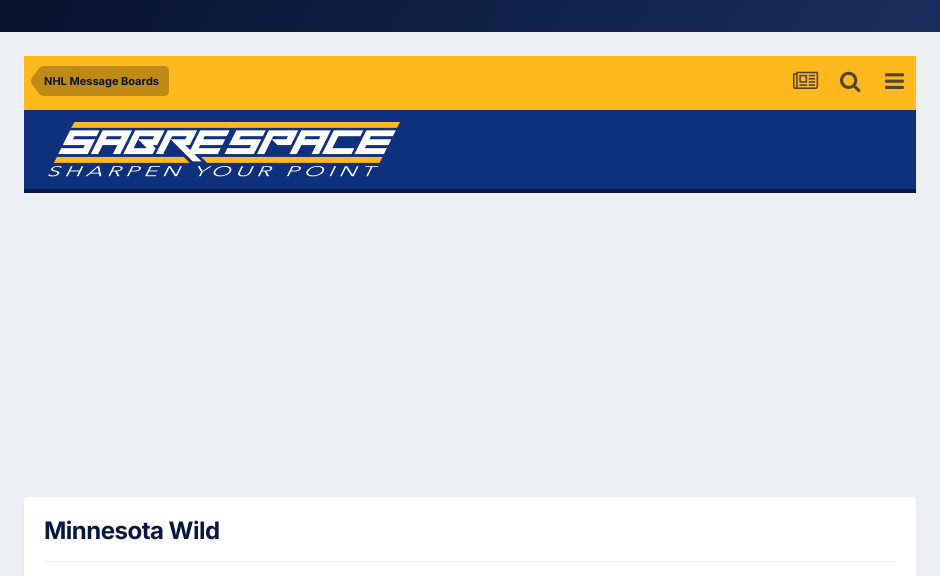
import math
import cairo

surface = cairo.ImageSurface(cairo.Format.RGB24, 940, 576)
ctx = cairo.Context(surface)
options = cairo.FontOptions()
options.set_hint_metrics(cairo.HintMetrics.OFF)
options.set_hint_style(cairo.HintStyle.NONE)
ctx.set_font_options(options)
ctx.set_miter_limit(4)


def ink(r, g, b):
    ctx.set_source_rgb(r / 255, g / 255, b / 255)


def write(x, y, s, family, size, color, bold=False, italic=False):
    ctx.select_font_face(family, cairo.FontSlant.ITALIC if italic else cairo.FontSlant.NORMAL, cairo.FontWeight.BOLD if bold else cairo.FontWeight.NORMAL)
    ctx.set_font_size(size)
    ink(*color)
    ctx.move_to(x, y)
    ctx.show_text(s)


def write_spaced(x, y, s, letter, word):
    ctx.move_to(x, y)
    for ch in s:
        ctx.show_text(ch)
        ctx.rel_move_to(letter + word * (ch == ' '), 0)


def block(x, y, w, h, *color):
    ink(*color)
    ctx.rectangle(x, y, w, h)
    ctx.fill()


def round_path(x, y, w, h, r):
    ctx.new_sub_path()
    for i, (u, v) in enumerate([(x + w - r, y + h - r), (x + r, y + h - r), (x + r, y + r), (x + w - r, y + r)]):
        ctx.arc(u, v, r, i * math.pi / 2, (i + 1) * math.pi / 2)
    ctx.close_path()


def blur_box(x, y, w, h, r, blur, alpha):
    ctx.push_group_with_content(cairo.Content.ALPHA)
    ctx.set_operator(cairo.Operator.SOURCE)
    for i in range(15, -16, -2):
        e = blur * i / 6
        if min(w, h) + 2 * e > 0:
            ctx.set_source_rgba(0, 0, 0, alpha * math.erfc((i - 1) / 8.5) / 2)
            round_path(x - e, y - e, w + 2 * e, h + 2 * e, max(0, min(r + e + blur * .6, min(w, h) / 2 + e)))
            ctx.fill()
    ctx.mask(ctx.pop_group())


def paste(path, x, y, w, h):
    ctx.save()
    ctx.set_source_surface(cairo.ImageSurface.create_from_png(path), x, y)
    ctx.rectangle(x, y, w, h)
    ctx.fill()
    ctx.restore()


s1 = dict(family="Inter", size=11, color=(6, 18, 47), bold=True)

ink(255, 255, 255)
ctx.paint()
gradient = cairo.LinearGradient(-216, 354, 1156, 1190)
gradient.add_color_stop_rgba(0, 0.024, 0.071, 0.184, 1)
gradient.add_color_stop_rgba(1, 0.176, 0.29, 0.553, 1)
ctx.set_source(gradient)
ctx.rectangle(0, 0, 940, 32)
ctx.fill()
block(0, 32, 940, 544, 236, 240, 244)
block(24, 56, 892, 54, 255, 184, 29)
ink(191, 138, 22)
ctx.new_path()
ctx.move_to(44, 66)
ctx.line_to(164, 66)
ctx.curve_to(167, 66, 169, 68, 169, 71)
ctx.line_to(169, 91)
ctx.curve_to(169, 94, 167, 96, 164, 96)
ctx.line_to(44, 96)
ctx.close_path()
ctx.fill()
ctx.new_path()
ctx.move_to(44, 81)
ctx.line_to(44, 96)
ctx.curve_to(39.5, 96, 37.5, 91.5, 35, 88)
ctx.curve_to(33.5, 86, 31, 84, 31, 81)
ctx.close_path()
ctx.move_to(44, 81)
ctx.line_to(31, 81)
ctx.curve_to(31, 78, 33.5, 76, 35, 74)
ctx.curve_to(37.5, 70.5, 39.5, 66, 44, 66)
ctx.close_path()
ctx.fill()
write(44, 85, "NHL Message Boards", **s1)
paste("pic1.png", 793, 71, 26, 18)
paste("pic2.png", 840, 71, 21, 22)
paste("pic3.png", 885, 73, 19, 16)
block(24, 110, 892, 79, 15, 48, 125)
block(24, 189, 892, 4, 7, 24, 62)
paste("pic4.png", 48, 122, 352, 55)
ink(0, 19, 53)
blur_box(25, 500, 890, 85, 3, 2, 0.1)
ink(255, 255, 255)
round_path(24, 497, 892, 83, 4)
ctx.fill()
ctx.set_font_size(24)
ink(7, 24, 62)
write_spaced(44, 539, "Minnesota Wild", -0.5, 0)
block(44, 561, 852, 1, 239, 239, 240)
surface.write_to_png("screenshot.png")
